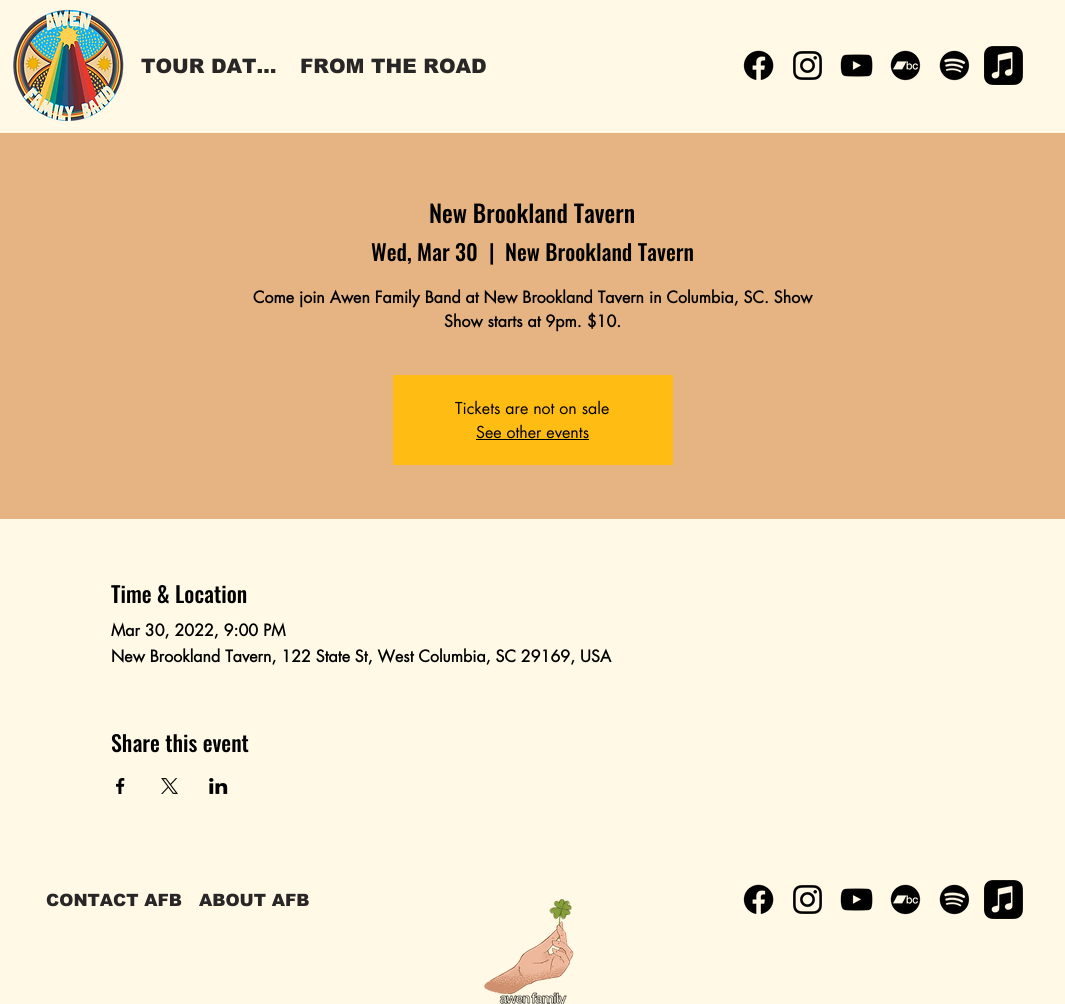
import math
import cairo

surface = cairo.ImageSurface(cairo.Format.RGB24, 1065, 1004)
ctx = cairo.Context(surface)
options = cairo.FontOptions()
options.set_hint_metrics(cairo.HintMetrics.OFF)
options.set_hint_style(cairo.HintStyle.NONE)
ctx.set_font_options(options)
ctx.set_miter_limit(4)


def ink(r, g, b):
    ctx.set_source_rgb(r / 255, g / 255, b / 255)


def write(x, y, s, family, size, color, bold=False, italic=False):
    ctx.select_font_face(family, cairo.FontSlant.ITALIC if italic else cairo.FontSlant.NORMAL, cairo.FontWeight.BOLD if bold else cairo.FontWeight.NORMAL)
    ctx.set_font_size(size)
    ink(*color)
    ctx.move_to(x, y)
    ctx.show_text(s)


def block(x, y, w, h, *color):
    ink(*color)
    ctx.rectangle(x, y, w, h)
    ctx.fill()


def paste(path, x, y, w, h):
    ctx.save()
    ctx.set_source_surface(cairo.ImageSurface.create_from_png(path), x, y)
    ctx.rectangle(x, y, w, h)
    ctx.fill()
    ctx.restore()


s1 = dict(family="arial Black", size=20, color=(40, 38, 38))
s2 = dict(family="Oswald Medium", size=24, color=(0, 0, 0))
s3 = dict(family="Oswald Medium", size=22, color=(0, 0, 0))
s4 = dict(family="futura", size=16, color=(0, 0, 0), bold=True)
s5 = dict(family="futura", size=16, color=(0, 0, 0))
s6 = dict(family="arial Black", size=17, color=(40, 38, 38))

ink(255, 249, 230)
ctx.paint()
paste("pic1.png", 13, 9, 111, 113)
write(141, 73, "TOUR DAT…", **s1)
write(300, 73, "FROM THE ROAD", **s1)
paste("pic2.png", 743, 50, 31, 30)
paste("pic3.png", 793, 51, 29, 29)
paste("pic4.png", 840, 54, 33, 23)
paste("pic5.png", 890, 50, 31, 31)
paste("pic6.png", 939, 50, 31, 31)
paste("pic7.png", 984, 46, 39, 39)
block(0, 133, 1065, 386, 230, 180, 130)
write(429, 223, "New Brookland Tavern", **s2)
write(371, 261, "Wed, Mar 30", **s3)
write(489, 261, "|", **s3)
write(505, 261, "New Brookland Tavern", **s3)
write(253, 303, "Come join Awen Family Band at New Brookland Tavern in Columbia, SC. Show", **s4)
write(444, 327, "Show starts at 9pm. $10.", **s4)
block(393, 375, 280, 90, 255, 189, 20)
write(455, 414, "Tickets are not on sale", **s5)
write(476, 438, "See other events", **s5)
block(476, 439, 113, 1, 0, 0, 0)
write(111, 603, "Time & Location", **s3)
write(111, 636, "Mar 30, 2022, 9:00 PM", **s4)
write(111, 662, "New Brookland Tavern, 122 State St, West Columbia, SC 29169, USA", **s4)
write(111, 752, "Share this event", **s3)
paste("pic8.png", 116, 778, 9, 16)
paste("pic9.png", 161, 778, 17, 16)
paste("pic10.png", 209, 778, 19, 16)
write(46, 906, "CONTACT AFB", **s6)
write(199, 906, "ABOUT AFB", **s6)
paste("pic11.png", 484, 899, 90, 105)
paste("pic2.png", 743, 884, 31, 30)
paste("pic3.png", 793, 885, 29, 29)
paste("pic4.png", 840, 888, 33, 23)
paste("pic5.png", 890, 884, 31, 31)
paste("pic6.png", 939, 884, 31, 31)
paste("pic7.png", 984, 880, 39, 39)
surface.write_to_png("screenshot.png")
